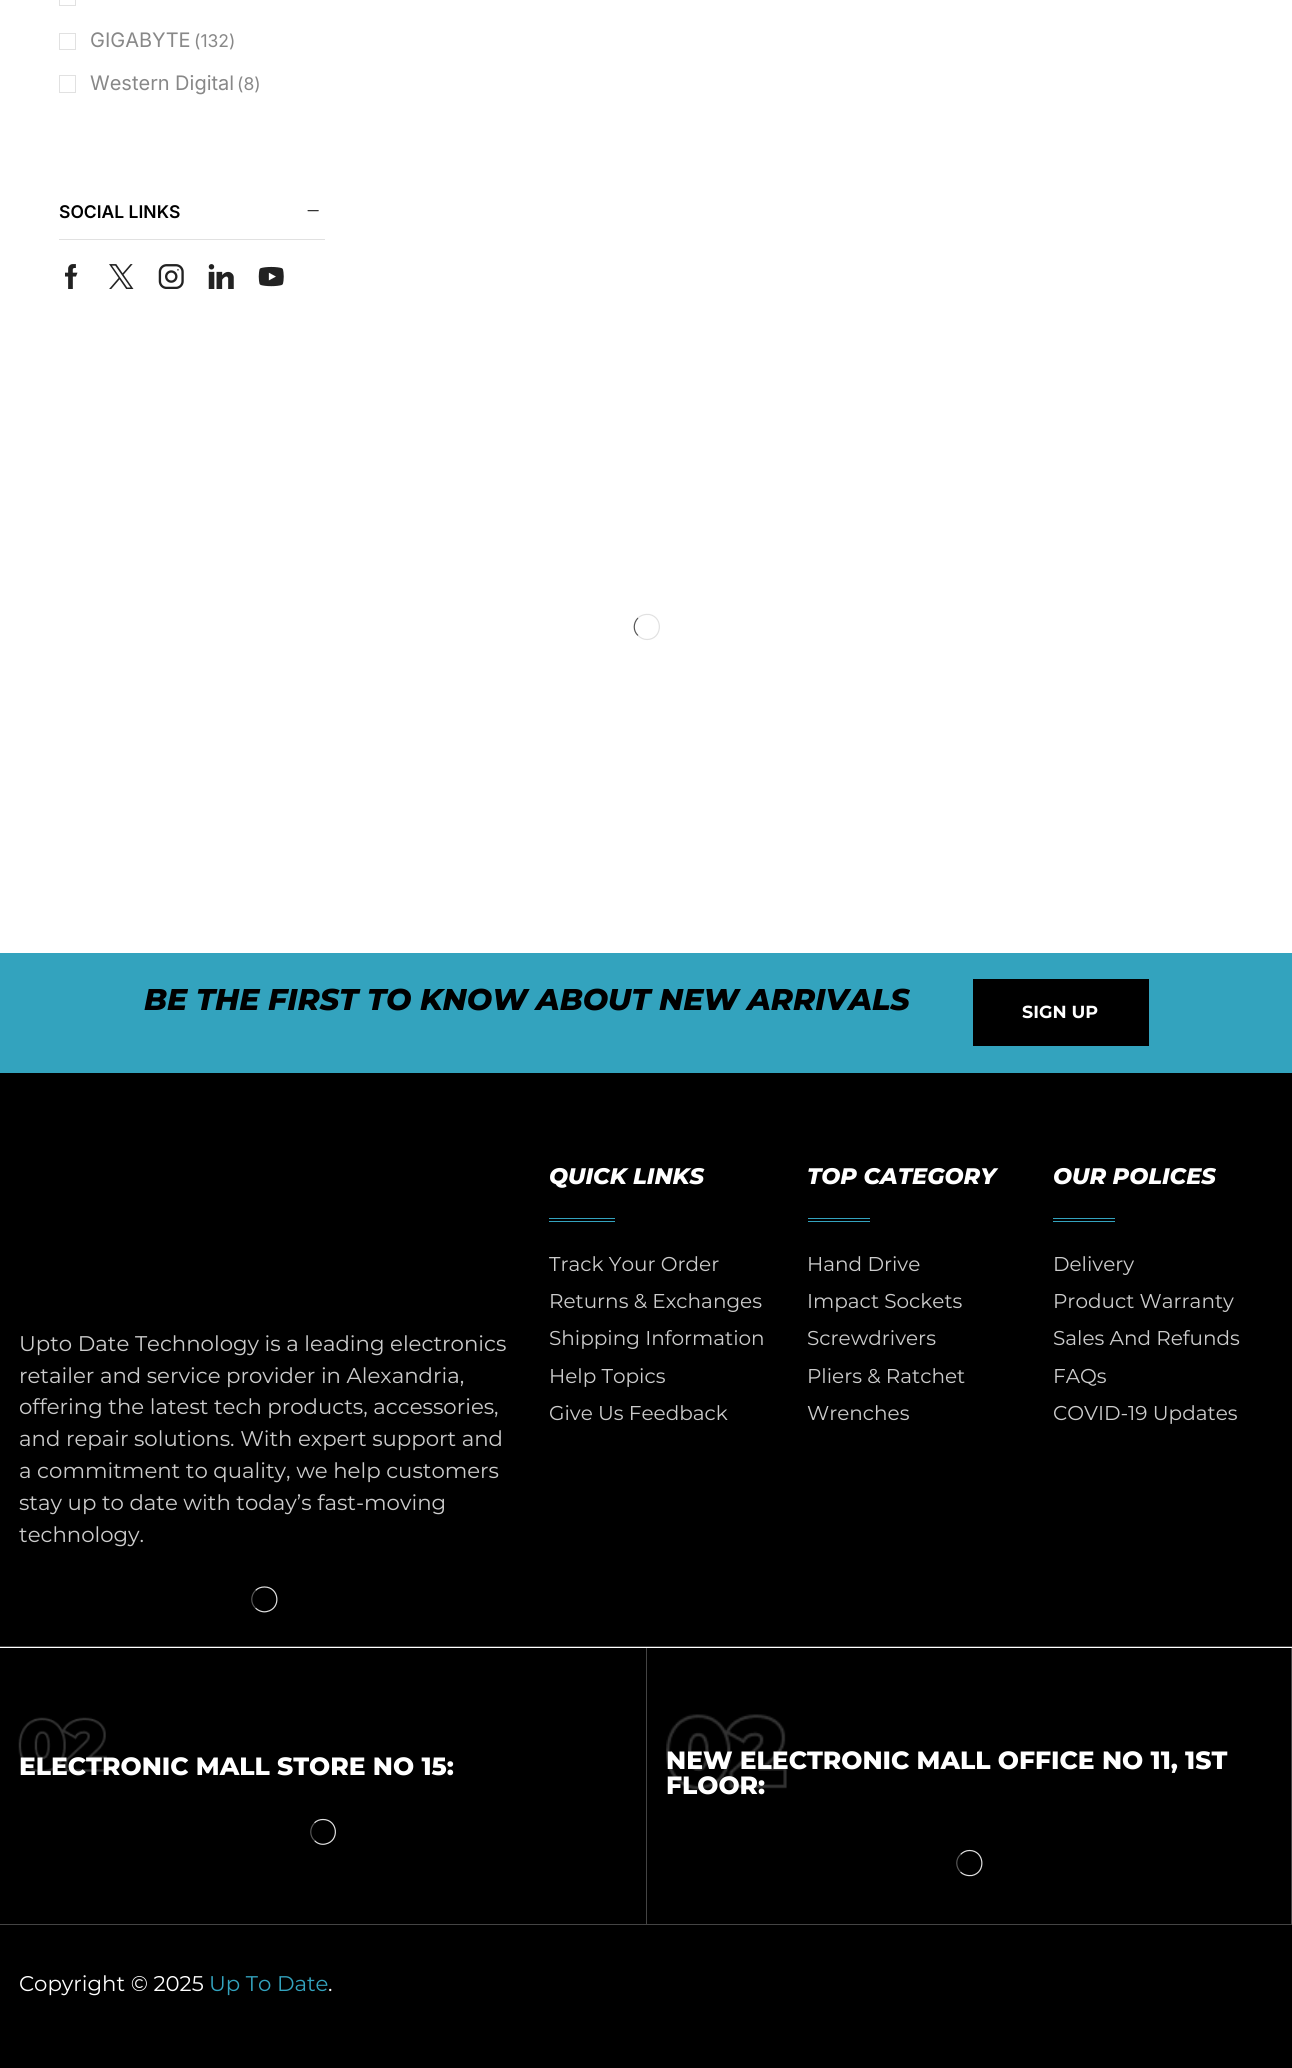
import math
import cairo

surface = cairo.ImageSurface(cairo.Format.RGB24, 1292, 2068)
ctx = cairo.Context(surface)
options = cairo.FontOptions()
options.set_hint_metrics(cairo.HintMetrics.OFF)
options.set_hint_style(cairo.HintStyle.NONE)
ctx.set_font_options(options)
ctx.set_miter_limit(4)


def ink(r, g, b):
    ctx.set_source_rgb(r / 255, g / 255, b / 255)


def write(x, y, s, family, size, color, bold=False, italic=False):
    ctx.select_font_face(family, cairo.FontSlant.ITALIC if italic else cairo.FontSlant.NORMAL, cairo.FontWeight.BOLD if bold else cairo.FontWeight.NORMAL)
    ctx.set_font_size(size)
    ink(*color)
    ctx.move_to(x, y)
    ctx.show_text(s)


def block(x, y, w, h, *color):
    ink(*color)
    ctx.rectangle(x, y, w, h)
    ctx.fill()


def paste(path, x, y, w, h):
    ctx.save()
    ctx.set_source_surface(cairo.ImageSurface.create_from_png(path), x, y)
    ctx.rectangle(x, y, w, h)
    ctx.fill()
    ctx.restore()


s1 = dict(family="Inter", size=20, color=(136, 136, 136))
s2 = dict(family="Inter", size=17.5, color=(136, 136, 136))
s3 = dict(family="Inter SemiBold", size=17.5, color=(0, 0, 0))
s4 = dict(family="Montserrat ExtraBold", size=30, color=(0, 0, 0), italic=True)
s5 = dict(family="Montserrat", size=17.5, color=(255, 255, 255), bold=True)
s6 = dict(family="Montserrat", size=21.25, color=(204, 204, 204))
s7 = dict(family="Montserrat ExtraBold", size=22.5, color=(255, 255, 255), italic=True)
s8 = dict(family="Montserrat", size=20, color=(204, 204, 204))
s9 = dict(family="Montserrat ExtraBold", size=25, color=(255, 255, 255))
s10 = dict(family="Montserrat", size=21.25, color=(255, 255, 255))
s11 = dict(family="Montserrat", size=21.25, color=(51, 163, 190))

ink(255, 255, 255)
ctx.paint()
ctx.rectangle(59.5, -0.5, 16, 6)
ink(225, 225, 225)
ctx.set_line_width(1)
ctx.stroke()
ctx.rectangle(59.5, 33.5, 16, 16)
ctx.stroke()
write(90, 47, "GIGABYTE", **s1)
write(194, 47, "(132)", **s2)
ctx.rectangle(59.5, 75.5, 16, 17)
ink(225, 225, 225)
ctx.stroke()
write(90, 90, "Western Digital", **s1)
write(237, 90, "(8)", **s2)
block(59, 239, 266, 1, 225, 225, 225)
write(59, 218, "SOCIAL LINKS", **s3)
paste("pic1.png", 307, 210, 12, 2)
paste("pic2.png", 65, 264, 13, 25)
paste("pic3.png", 109, 264, 25, 25)
paste("pic4.png", 158, 264, 26, 25)
paste("pic5.png", 208, 264, 26, 25)
paste("pic6.png", 258, 266, 26, 21)
ctx.new_path()
ctx.move_to(638, 618)
ctx.curve_to(641, 615, 645.5, 614, 649.5, 614.5)
ctx.curve_to(664, 617.5, 662, 639.5, 647, 639.5)
ctx.curve_to(643.5, 639.5, 640.5, 638, 638, 635.5)
ink(225, 225, 225)
ctx.set_line_width(1.2)
ctx.stroke()
ctx.new_path()
ctx.move_to(638, 635.5)
ctx.curve_to(633, 631, 633, 623, 638, 618)
ink(85, 85, 85)
ctx.stroke()
block(0, 953, 1292, 120, 51, 163, 190)
write(144, 1010, "BE THE FIRST TO KNOW ABOUT NEW ARRIVALS", **s4)
block(973, 979, 176, 67, 0, 0, 0)
write(1022, 1018, "SIGN UP", **s5)
block(0, 1073, 1292, 573, 0, 0, 0)
write(19, 1351, "Upto Date Technology is a leading electronics", **s6)
write(19, 1383, "retailer and service provider in Alexandria,", **s6)
write(19, 1414, "offering the latest tech products, accessories,", **s6)
write(19, 1446, "and repair solutions. With expert support and", **s6)
write(19, 1478, "a commitment to quality, we help customers", **s6)
write(19, 1510, "stay up to date with today’s fast-moving", **s6)
write(19, 1542, "technology.", **s6)
ctx.new_path()
ctx.move_to(255.5, 1590.5)
ctx.curve_to(258, 1588, 261, 1587, 264.5, 1587)
ctx.curve_to(279.5, 1587, 281.5, 1608.5, 267, 1611.5)
ctx.curve_to(263, 1612.5, 258.5, 1611, 255.5, 1608)
ink(225, 225, 225)
ctx.stroke()
ctx.new_path()
ctx.move_to(255.5, 1608)
ctx.curve_to(250.5, 1603.5, 250.5, 1595.5, 255.5, 1590.5)
ink(85, 85, 85)
ctx.stroke()
write(549, 1184, "QUICK LINKS", **s7)
block(549, 1218, 66, 1, 51, 163, 190)
block(549, 1221, 66, 1, 51, 163, 190)
write(549, 1271, "Track Your Order", **s8)
write(549, 1308, "Returns & Exchanges", **s8)
write(549, 1345, "Shipping Information", **s8)
write(549, 1383, "Help Topics", **s8)
write(549, 1420, "Give Us Feedback", **s8)
write(807, 1184, "TOP CATEGORY", **s7)
block(808, 1218, 62, 1, 51, 163, 190)
block(808, 1221, 62, 1, 51, 163, 190)
write(807, 1271, "Hand Drive", **s8)
write(807, 1308, "Impact Sockets", **s8)
write(807, 1345, "Screwdrivers", **s8)
write(807, 1383, "Pliers & Ratchet", **s8)
write(807, 1420, "Wrenches", **s8)
write(1053, 1184, "OUR POLICES", **s7)
block(1053, 1218, 62, 1, 51, 163, 190)
block(1053, 1221, 62, 1, 51, 163, 190)
write(1053, 1271, "Delivery", **s8)
write(1053, 1308, "Product Warranty", **s8)
write(1053, 1345, "Sales And Refunds", **s8)
write(1053, 1383, "FAQs", **s8)
write(1053, 1420, "COVID-19 Updates", **s8)
block(0, 1648, 1291, 276, 0, 0, 0)
block(0, 1646, 1292, 1, 68, 68, 68)
block(0, 1924, 1292, 1, 68, 68, 68)
paste("pic7.png", 18, 1717, 89, 56)
write(19, 1775, "ELECTRONIC MALL STORE NO 15:", **s9)
ctx.new_path()
ctx.move_to(314.5, 1823)
ctx.curve_to(316.5, 1820.5, 320, 1819.5, 323, 1819.5)
ctx.curve_to(338, 1819.5, 340, 1841, 325.5, 1844)
ctx.curve_to(321.5, 1845, 317, 1843.5, 314.5, 1840.5)
ink(225, 225, 225)
ctx.stroke()
ctx.new_path()
ctx.move_to(314.5, 1840.5)
ctx.curve_to(309.5, 1836, 309.5, 1828, 314.5, 1823)
ink(85, 85, 85)
ctx.stroke()
block(1291, 1648, 1, 276, 68, 68, 68)
block(646, 1648, 1, 276, 68, 68, 68)
paste("pic8.png", 666, 1714, 121, 76)
write(666, 1769, "NEW ELECTRONIC MALL OFFICE NO 11, 1ST", **s9)
write(666, 1794, "FLOOR:", **s9)
ctx.new_path()
ctx.move_to(960.5, 1854.5)
ctx.curve_to(963, 1852, 966, 1850.5, 969.5, 1850.5)
ctx.curve_to(984.5, 1850.5, 986.5, 1872.5, 972, 1875.5)
ctx.curve_to(968, 1876, 963.5, 1875, 960.5, 1872)
ink(225, 225, 225)
ctx.stroke()
ctx.new_path()
ctx.move_to(960.5, 1872)
ctx.curve_to(955.5, 1867, 955.5, 1859, 960.5, 1854.5)
ink(85, 85, 85)
ctx.stroke()
block(0, 1925, 1292, 143, 0, 0, 0)
write(19, 1991, "Copyright © 2025", **s10)
write(209, 1991, "Up To Date", **s11)
write(328, 1991, ".", **s10)
surface.write_to_png("screenshot.png")
